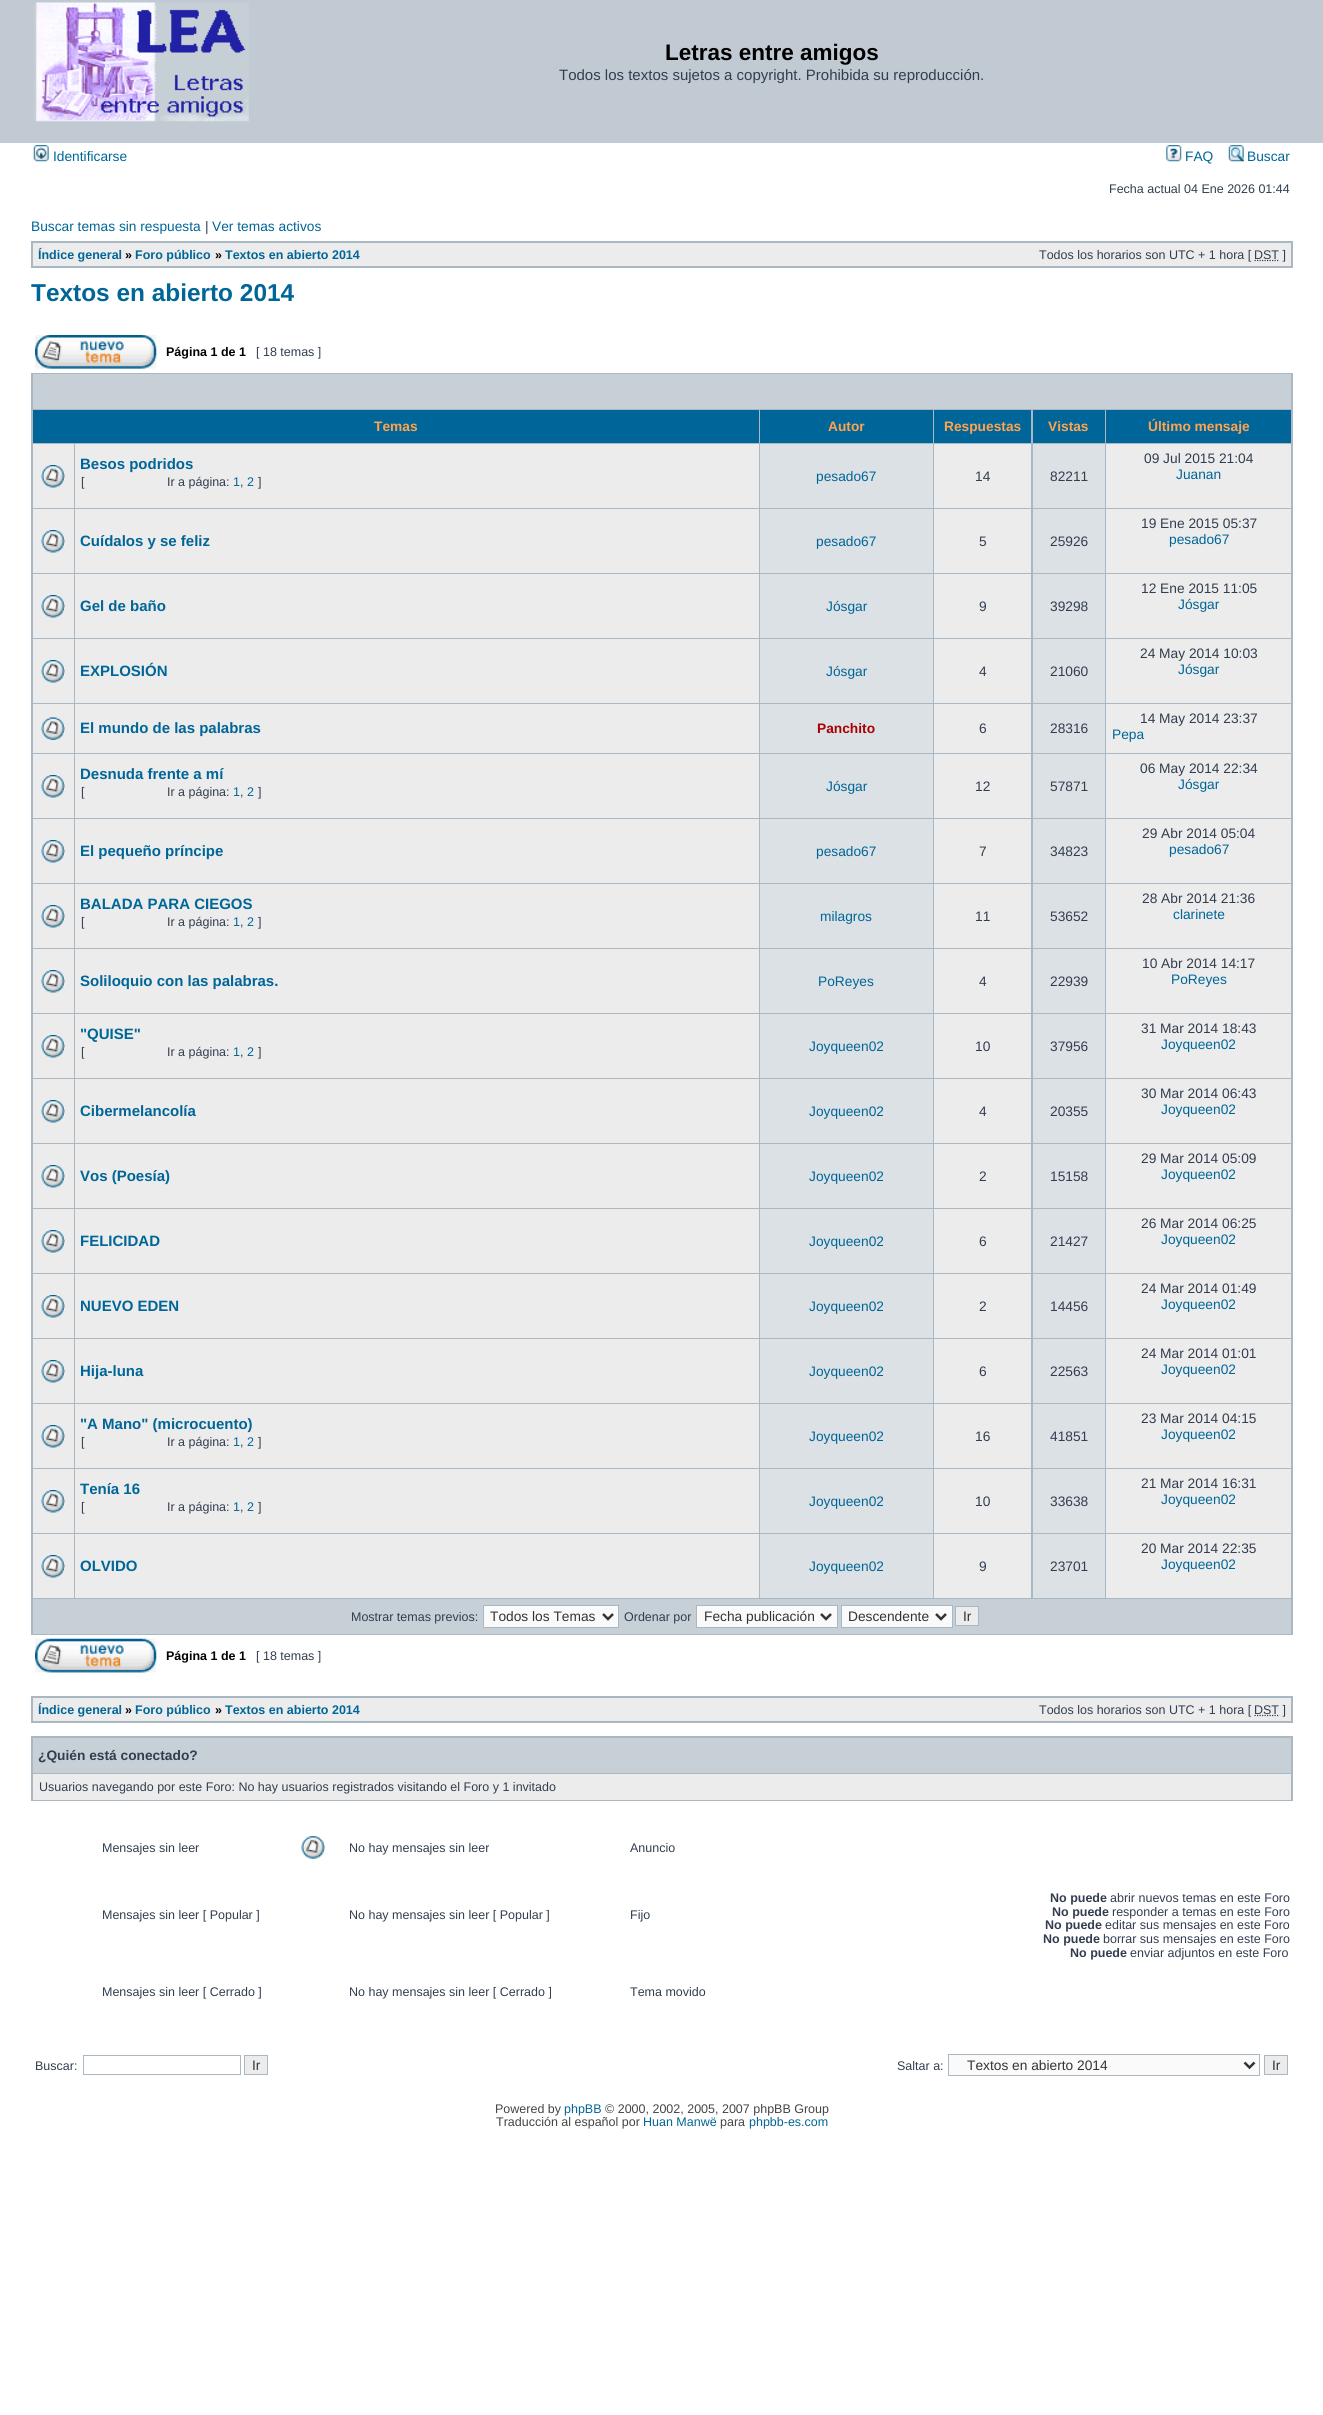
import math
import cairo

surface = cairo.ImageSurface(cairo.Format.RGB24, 1323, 2415)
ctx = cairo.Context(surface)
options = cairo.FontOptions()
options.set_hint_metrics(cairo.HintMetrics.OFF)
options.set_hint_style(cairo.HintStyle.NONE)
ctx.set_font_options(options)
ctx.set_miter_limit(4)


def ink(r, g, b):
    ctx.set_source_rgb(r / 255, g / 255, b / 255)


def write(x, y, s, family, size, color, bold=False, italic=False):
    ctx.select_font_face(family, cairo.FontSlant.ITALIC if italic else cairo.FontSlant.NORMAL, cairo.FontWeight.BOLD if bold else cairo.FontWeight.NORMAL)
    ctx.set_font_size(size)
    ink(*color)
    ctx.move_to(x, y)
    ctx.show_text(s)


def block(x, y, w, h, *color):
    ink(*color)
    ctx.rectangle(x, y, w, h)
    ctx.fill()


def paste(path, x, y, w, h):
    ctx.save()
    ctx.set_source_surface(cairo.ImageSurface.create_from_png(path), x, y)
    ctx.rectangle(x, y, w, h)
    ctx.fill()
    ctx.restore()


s1 = dict(family="Liberation Sans", size=22.5, color=(0, 0, 0), bold=True)
s2 = dict(family="Liberation Sans", size=15, color=(50, 61, 79))
s3 = dict(family="Liberation Sans", size=13.75, color=(0, 101, 151))
s4 = dict(family="Liberation Sans", size=12.5, color=(50, 61, 79))
s5 = dict(family="Liberation Sans", size=13.75, color=(50, 61, 79))
s6 = dict(family="Liberation Sans", size=12.5, color=(0, 101, 151), bold=True)
s7 = dict(family="Liberation Sans", size=12.5, color=(0, 0, 0), bold=True)
s8 = dict(family="Liberation Sans", size=24.4, color=(0, 101, 151), bold=True)
s9 = dict(family="Liberation Sans", size=13.75, color=(255, 163, 79), bold=True)
s10 = dict(family="Liberation Sans", size=15, color=(0, 101, 151), bold=True)
s11 = dict(family="Liberation Sans", size=12.5, color=(0, 101, 151))
s12 = dict(family="Liberation Sans", size=13.75, color=(170, 0, 0), bold=True)
s13 = dict(family="Liberation Sans", size=13.75, color=(51, 51, 51))
s14 = dict(family="Liberation Sans", size=13.75, color=(50, 61, 79), bold=True)
s15 = dict(family="Liberation Sans", size=12.5, color=(50, 61, 79), bold=True)
s16 = dict(family="Liberation Sans", size=12.5, color=(68, 68, 68))

ink(255, 255, 255)
ctx.paint()
block(0, 0, 1323, 143, 193, 202, 210)
paste("pic1.png", 34, 2, 215, 120)
write(665, 60, "Letras entre amigos", **s1)
write(559, 80, "Todos los textos sujetos a copyright. Prohibida su reproducción.", **s2)
paste("pic2.png", 33, 145, 16, 17)
write(53, 161, "Identificarse", **s3)
paste("pic3.png", 1166, 145, 16, 17)
write(1185, 161, "FAQ", **s3)
paste("pic4.png", 1228, 145, 16, 17)
write(1247, 161, "Buscar", **s3)
write(1109, 193, "Fecha actual 04 Ene 2026 01:44", **s4)
write(31, 231, "Buscar temas sin respuesta", **s3)
write(205, 231, "|", **s5)
write(212, 231, "Ver temas activos", **s3)
block(31, 241, 1262, 27, 169, 184, 194)
block(33, 243, 1258, 23, 236, 236, 236)
write(38, 259, "Índice general", **s6)
write(125, 259, "»", **s7)
write(135, 259, "Foro público", **s6)
write(215, 259, "»", **s7)
write(225, 259, "Textos en abierto 2014", **s6)
write(1039, 259, "Todos los horarios son UTC + 1 hora [", **s4)
ctx.new_path()
ctx.move_to(1254.5, 260.5)
ctx.line_to(1279.5, 260.5)
ctx.set_line_width(1.2)
ctx.set_dash([1.25, 1.25])
ctx.stroke()
write(1254, 259, "DST ]", **s4)
write(31, 301, "Textos en abierto 2014", **s8)
paste("pic5.png", 35, 335, 122, 34)
write(166, 356, "Página 1 de 1", **s7)
write(256, 356, "[ 18 temas ]", **s4)
block(31, 373, 1262, 1262, 169, 184, 194)
block(33, 374, 1258, 35, 199, 208, 215)
block(33, 410, 726, 33, 0, 102, 153)
write(374, 431, "Temas", **s9)
block(760, 410, 173, 33, 0, 102, 153)
write(828, 431, "Autor", **s9)
block(934, 410, 97, 33, 0, 102, 153)
write(944, 431, "Respuestas", **s9)
block(1033, 410, 72, 33, 0, 102, 153)
write(1048, 431, "Vistas", **s9)
block(1106, 410, 185, 33, 0, 102, 153)
write(1148, 431, "Último mensaje", **s9)
block(33, 444, 41, 64, 236, 236, 236)
paste("pic6.png", 41, 465, 24, 23)
block(75, 444, 684, 64, 236, 236, 236)
write(80, 469, "Besos podridos", **s10)
write(81, 486, "[", **s4)
write(167, 486, "Ir a página:", **s4)
write(233, 486, "1", **s11)
write(240, 486, ",", **s4)
write(247, 486, "2", **s11)
write(258, 486, "]", **s4)
block(760, 444, 173, 64, 220, 225, 229)
write(816, 481, "pesado67", **s3)
block(934, 444, 97, 64, 236, 236, 236)
write(975, 481, "14", **s5)
block(1033, 444, 72, 64, 220, 225, 229)
write(1050, 481, "82211", **s5)
block(1106, 444, 185, 64, 236, 236, 236)
write(1144, 463, "09 Jul 2015 21:04", **s5)
write(1176, 479, "Juanan", **s3)
block(33, 509, 41, 64, 236, 236, 236)
paste("pic6.png", 41, 530, 24, 23)
block(75, 509, 684, 64, 236, 236, 236)
write(80, 546, "Cuídalos y se feliz", **s10)
block(760, 509, 173, 64, 220, 225, 229)
write(816, 546, "pesado67", **s3)
block(934, 509, 97, 64, 236, 236, 236)
write(979, 546, "5", **s5)
block(1033, 509, 72, 64, 220, 225, 229)
write(1050, 546, "25926", **s5)
block(1106, 509, 185, 64, 236, 236, 236)
write(1141, 528, "19 Ene 2015 05:37", **s5)
write(1169, 544, "pesado67", **s3)
block(33, 574, 41, 64, 236, 236, 236)
paste("pic6.png", 41, 595, 24, 23)
block(75, 574, 684, 64, 236, 236, 236)
write(80, 611, "Gel de baño", **s10)
block(760, 574, 173, 64, 220, 225, 229)
write(826, 611, "Jósgar", **s3)
block(934, 574, 97, 64, 236, 236, 236)
write(979, 611, "9", **s5)
block(1033, 574, 72, 64, 220, 225, 229)
write(1050, 611, "39298", **s5)
block(1106, 574, 185, 64, 236, 236, 236)
write(1141, 593, "12 Ene 2015 11:05", **s5)
write(1178, 609, "Jósgar", **s3)
block(33, 639, 41, 64, 236, 236, 236)
paste("pic6.png", 41, 660, 24, 23)
block(75, 639, 684, 64, 236, 236, 236)
write(80, 676, "EXPLOSIÓN", **s10)
block(760, 639, 173, 64, 220, 225, 229)
write(826, 676, "Jósgar", **s3)
block(934, 639, 97, 64, 236, 236, 236)
write(979, 676, "4", **s5)
block(1033, 639, 72, 64, 220, 225, 229)
write(1050, 676, "21060", **s5)
block(1106, 639, 185, 64, 236, 236, 236)
write(1140, 658, "24 May 2014 10:03", **s5)
write(1178, 674, "Jósgar", **s3)
block(33, 704, 41, 49, 236, 236, 236)
paste("pic7.png", 41, 717, 24, 23)
block(75, 704, 684, 49, 236, 236, 236)
write(80, 733, "El mundo de las palabras", **s10)
block(760, 704, 173, 49, 220, 225, 229)
write(817, 733, "Panchito", **s12)
block(934, 704, 97, 49, 236, 236, 236)
write(979, 733, "6", **s5)
block(1033, 704, 72, 49, 220, 225, 229)
write(1050, 733, "28316", **s5)
block(1106, 704, 185, 49, 236, 236, 236)
write(1140, 723, "14 May 2014 23:37", **s5)
write(1112, 739, "Pepa", **s3)
block(33, 754, 41, 64, 236, 236, 236)
paste("pic8.png", 41, 775, 24, 23)
block(75, 754, 684, 64, 236, 236, 236)
write(80, 779, "Desnuda frente a mí", **s10)
write(81, 796, "[", **s4)
write(167, 796, "Ir a página:", **s4)
write(233, 796, "1", **s11)
write(240, 796, ",", **s4)
write(247, 796, "2", **s11)
write(258, 796, "]", **s4)
block(760, 754, 173, 64, 220, 225, 229)
write(826, 791, "Jósgar", **s3)
block(934, 754, 97, 64, 236, 236, 236)
write(975, 791, "12", **s5)
block(1033, 754, 72, 64, 220, 225, 229)
write(1050, 791, "57871", **s5)
block(1106, 754, 185, 64, 236, 236, 236)
write(1140, 773, "06 May 2014 22:34", **s5)
write(1178, 789, "Jósgar", **s3)
block(33, 819, 41, 64, 236, 236, 236)
paste("pic6.png", 41, 840, 24, 23)
block(75, 819, 684, 64, 236, 236, 236)
write(80, 856, "El pequeño príncipe", **s10)
block(760, 819, 173, 64, 220, 225, 229)
write(816, 856, "pesado67", **s3)
block(934, 819, 97, 64, 236, 236, 236)
write(979, 856, "7", **s5)
block(1033, 819, 72, 64, 220, 225, 229)
write(1050, 856, "34823", **s5)
block(1106, 819, 185, 64, 236, 236, 236)
write(1142, 838, "29 Abr 2014 05:04", **s5)
write(1169, 854, "pesado67", **s3)
block(33, 884, 41, 64, 236, 236, 236)
paste("pic6.png", 41, 905, 24, 23)
block(75, 884, 684, 64, 236, 236, 236)
write(80, 909, "BALADA PARA CIEGOS", **s10)
write(81, 926, "[", **s4)
write(167, 926, "Ir a página:", **s4)
write(233, 926, "1", **s11)
write(240, 926, ",", **s4)
write(247, 926, "2", **s11)
write(258, 926, "]", **s4)
block(760, 884, 173, 64, 220, 225, 229)
write(820, 921, "milagros", **s3)
block(934, 884, 97, 64, 236, 236, 236)
write(975, 921, "11", **s5)
block(1033, 884, 72, 64, 220, 225, 229)
write(1050, 921, "53652", **s5)
block(1106, 884, 185, 64, 236, 236, 236)
write(1142, 903, "28 Abr 2014 21:36", **s5)
write(1173, 919, "clarinete", **s3)
block(33, 949, 41, 64, 236, 236, 236)
paste("pic6.png", 41, 970, 24, 23)
block(75, 949, 684, 64, 236, 236, 236)
write(80, 986, "Soliloquio con las palabras.", **s10)
block(760, 949, 173, 64, 220, 225, 229)
write(818, 986, "PoReyes", **s3)
block(934, 949, 97, 64, 236, 236, 236)
write(979, 986, "4", **s5)
block(1033, 949, 72, 64, 220, 225, 229)
write(1050, 986, "22939", **s5)
block(1106, 949, 185, 64, 236, 236, 236)
write(1142, 968, "10 Abr 2014 14:17", **s5)
write(1171, 984, "PoReyes", **s3)
block(33, 1014, 41, 64, 236, 236, 236)
paste("pic6.png", 41, 1035, 24, 23)
block(75, 1014, 684, 64, 236, 236, 236)
write(80, 1039, "\"QUISE\"", **s10)
write(81, 1056, "[", **s4)
write(167, 1056, "Ir a página:", **s4)
write(233, 1056, "1", **s11)
write(240, 1056, ",", **s4)
write(247, 1056, "2", **s11)
write(258, 1056, "]", **s4)
block(760, 1014, 173, 64, 220, 225, 229)
write(809, 1051, "Joyqueen02", **s3)
block(934, 1014, 97, 64, 236, 236, 236)
write(975, 1051, "10", **s5)
block(1033, 1014, 72, 64, 220, 225, 229)
write(1050, 1051, "37956", **s5)
block(1106, 1014, 185, 64, 236, 236, 236)
write(1141, 1033, "31 Mar 2014 18:43", **s5)
write(1161, 1049, "Joyqueen02", **s3)
block(33, 1079, 41, 64, 236, 236, 236)
paste("pic6.png", 41, 1100, 24, 23)
block(75, 1079, 684, 64, 236, 236, 236)
write(80, 1116, "Cibermelancolía", **s10)
block(760, 1079, 173, 64, 220, 225, 229)
write(809, 1116, "Joyqueen02", **s3)
block(934, 1079, 97, 64, 236, 236, 236)
write(979, 1116, "4", **s5)
block(1033, 1079, 72, 64, 220, 225, 229)
write(1050, 1116, "20355", **s5)
block(1106, 1079, 185, 64, 236, 236, 236)
write(1141, 1098, "30 Mar 2014 06:43", **s5)
write(1161, 1114, "Joyqueen02", **s3)
block(33, 1144, 41, 64, 236, 236, 236)
paste("pic9.png", 41, 1165, 24, 23)
block(75, 1144, 684, 64, 236, 236, 236)
write(80, 1181, "Vos (Poesía)", **s10)
block(760, 1144, 173, 64, 220, 225, 229)
write(809, 1181, "Joyqueen02", **s3)
block(934, 1144, 97, 64, 236, 236, 236)
write(979, 1181, "2", **s5)
block(1033, 1144, 72, 64, 220, 225, 229)
write(1050, 1181, "15158", **s5)
block(1106, 1144, 185, 64, 236, 236, 236)
write(1141, 1163, "29 Mar 2014 05:09", **s5)
write(1161, 1179, "Joyqueen02", **s3)
block(33, 1209, 41, 64, 236, 236, 236)
paste("pic6.png", 41, 1230, 24, 23)
block(75, 1209, 684, 64, 236, 236, 236)
write(80, 1246, "FELICIDAD", **s10)
block(760, 1209, 173, 64, 220, 225, 229)
write(809, 1246, "Joyqueen02", **s3)
block(934, 1209, 97, 64, 236, 236, 236)
write(979, 1246, "6", **s5)
block(1033, 1209, 72, 64, 220, 225, 229)
write(1050, 1246, "21427", **s5)
block(1106, 1209, 185, 64, 236, 236, 236)
write(1141, 1228, "26 Mar 2014 06:25", **s5)
write(1161, 1244, "Joyqueen02", **s3)
block(33, 1274, 41, 64, 236, 236, 236)
paste("pic6.png", 41, 1295, 24, 23)
block(75, 1274, 684, 64, 236, 236, 236)
write(80, 1311, "NUEVO EDEN", **s10)
block(760, 1274, 173, 64, 220, 225, 229)
write(809, 1311, "Joyqueen02", **s3)
block(934, 1274, 97, 64, 236, 236, 236)
write(979, 1311, "2", **s5)
block(1033, 1274, 72, 64, 220, 225, 229)
write(1050, 1311, "14456", **s5)
block(1106, 1274, 185, 64, 236, 236, 236)
write(1141, 1293, "24 Mar 2014 01:49", **s5)
write(1161, 1309, "Joyqueen02", **s3)
block(33, 1339, 41, 64, 236, 236, 236)
paste("pic6.png", 41, 1360, 24, 23)
block(75, 1339, 684, 64, 236, 236, 236)
write(80, 1376, "Hija-luna", **s10)
block(760, 1339, 173, 64, 220, 225, 229)
write(809, 1376, "Joyqueen02", **s3)
block(934, 1339, 97, 64, 236, 236, 236)
write(979, 1376, "6", **s5)
block(1033, 1339, 72, 64, 220, 225, 229)
write(1050, 1376, "22563", **s5)
block(1106, 1339, 185, 64, 236, 236, 236)
write(1141, 1358, "24 Mar 2014 01:01", **s5)
write(1161, 1374, "Joyqueen02", **s3)
block(33, 1404, 41, 64, 236, 236, 236)
paste("pic6.png", 41, 1425, 24, 23)
block(75, 1404, 684, 64, 236, 236, 236)
write(80, 1429, "\"A Mano\" (microcuento)", **s10)
write(81, 1446, "[", **s4)
write(167, 1446, "Ir a página:", **s4)
write(233, 1446, "1", **s11)
write(240, 1446, ",", **s4)
write(247, 1446, "2", **s11)
write(258, 1446, "]", **s4)
block(760, 1404, 173, 64, 220, 225, 229)
write(809, 1441, "Joyqueen02", **s3)
block(934, 1404, 97, 64, 236, 236, 236)
write(975, 1441, "16", **s5)
block(1033, 1404, 72, 64, 220, 225, 229)
write(1050, 1441, "41851", **s5)
block(1106, 1404, 185, 64, 236, 236, 236)
write(1141, 1423, "23 Mar 2014 04:15", **s5)
write(1161, 1439, "Joyqueen02", **s3)
block(33, 1469, 41, 64, 236, 236, 236)
paste("pic6.png", 41, 1490, 24, 23)
block(75, 1469, 684, 64, 236, 236, 236)
write(80, 1494, "Tenía 16", **s10)
write(81, 1511, "[", **s4)
write(167, 1511, "Ir a página:", **s4)
write(233, 1511, "1", **s11)
write(240, 1511, ",", **s4)
write(247, 1511, "2", **s11)
write(258, 1511, "]", **s4)
block(760, 1469, 173, 64, 220, 225, 229)
write(809, 1506, "Joyqueen02", **s3)
block(934, 1469, 97, 64, 236, 236, 236)
write(975, 1506, "10", **s5)
block(1033, 1469, 72, 64, 220, 225, 229)
write(1050, 1506, "33638", **s5)
block(1106, 1469, 185, 64, 236, 236, 236)
write(1141, 1488, "21 Mar 2014 16:31", **s5)
write(1161, 1504, "Joyqueen02", **s3)
block(33, 1534, 41, 64, 236, 236, 236)
paste("pic9.png", 41, 1555, 24, 23)
block(75, 1534, 684, 64, 236, 236, 236)
write(80, 1571, "OLVIDO", **s10)
block(760, 1534, 173, 64, 220, 225, 229)
write(809, 1571, "Joyqueen02", **s3)
block(934, 1534, 97, 64, 236, 236, 236)
write(979, 1571, "9", **s5)
block(1033, 1534, 72, 64, 220, 225, 229)
write(1050, 1571, "23701", **s5)
block(1106, 1534, 185, 64, 236, 236, 236)
write(1141, 1553, "20 Mar 2014 22:35", **s5)
write(1161, 1569, "Joyqueen02", **s3)
block(33, 1599, 1258, 35, 199, 208, 215)
write(351, 1621, "Mostrar temas previos:", **s4)
ink(250, 250, 250)
ctx.rectangle(483.5, 1605.5, 135, 22)
ctx.fill_preserve()
ink(169, 184, 194)
ctx.set_line_width(1)
ctx.set_dash([])
ctx.stroke()
ctx.new_path()
ctx.move_to(603, 1614)
ctx.line_to(608, 1619)
ctx.line_to(613, 1614)
ink(51, 51, 51)
ctx.set_line_width(2.5)
ctx.stroke()
write(490, 1621, "Todos los Temas", **s13)
write(624, 1621, "Ordenar por", **s4)
ink(250, 250, 250)
ctx.rectangle(696.5, 1605.5, 141, 22)
ctx.fill_preserve()
ink(169, 184, 194)
ctx.set_line_width(1)
ctx.stroke()
ctx.new_path()
ctx.move_to(821, 1614)
ctx.line_to(826, 1619)
ctx.line_to(831, 1614)
ink(51, 51, 51)
ctx.set_line_width(2.5)
ctx.stroke()
write(704, 1621, "Fecha publicación", **s13)
ink(250, 250, 250)
ctx.rectangle(841.5, 1605.5, 111, 22)
ctx.fill_preserve()
ink(169, 184, 194)
ctx.set_line_width(1)
ctx.stroke()
ctx.new_path()
ctx.move_to(936, 1614)
ctx.line_to(941, 1619)
ctx.line_to(946, 1614)
ink(51, 51, 51)
ctx.set_line_width(2.5)
ctx.stroke()
write(848, 1621, "Descendente", **s13)
ink(236, 236, 236)
ctx.rectangle(955.5, 1606.5, 23, 19)
ctx.fill_preserve()
ink(169, 184, 194)
ctx.set_line_width(1)
ctx.stroke()
write(963, 1621, "Ir", **s13)
paste("pic10.png", 35, 1638, 122, 35)
write(166, 1660, "Página 1 de 1", **s7)
write(256, 1660, "[ 18 temas ]", **s4)
block(31, 1696, 1262, 27, 169, 184, 194)
block(33, 1698, 1258, 23, 236, 236, 236)
write(38, 1714, "Índice general", **s6)
write(125, 1714, "»", **s7)
write(135, 1714, "Foro público", **s6)
write(215, 1714, "»", **s7)
write(225, 1714, "Textos en abierto 2014", **s6)
write(1039, 1714, "Todos los horarios son UTC + 1 hora [", **s4)
ctx.new_path()
ctx.move_to(1254.5, 1715.5)
ctx.line_to(1279.5, 1715.5)
ctx.set_line_width(1.2)
ctx.set_dash([1.25, 1.25])
ctx.stroke()
write(1254, 1714, "DST ]", **s4)
block(31, 1736, 1262, 65, 169, 184, 194)
block(33, 1738, 1258, 35, 199, 208, 215)
write(38, 1760, "¿Quién está conectado?", **s14)
block(33, 1774, 1258, 26, 236, 236, 236)
write(39, 1791, "Usuarios navegando por este Foro: No hay usuarios registrados visitando el Foro y 1 invitado", **s4)
write(102, 1852, "Mensajes sin leer", **s4)
paste("pic11.png", 301, 1836, 24, 23)
write(349, 1852, "No hay mensajes sin leer", **s4)
write(630, 1852, "Anuncio", **s4)
write(102, 1919, "Mensajes sin leer [ Popular ]", **s4)
write(349, 1919, "No hay mensajes sin leer [ Popular ]", **s4)
write(630, 1919, "Fijo", **s4)
write(102, 1996, "Mensajes sin leer [ Cerrado ]", **s4)
write(349, 1996, "No hay mensajes sin leer [ Cerrado ]", **s4)
write(630, 1996, "Tema movido", **s4)
write(1050, 1902, "No puede", **s15)
write(1110, 1902, "abrir nuevos temas en este Foro", **s4)
write(1052, 1916, "No puede", **s15)
write(1112, 1916, "responder a temas en este Foro", **s4)
write(1045, 1929, "No puede", **s15)
write(1105, 1929, "editar sus mensajes en este Foro", **s4)
write(1043, 1943, "No puede", **s15)
write(1103, 1943, "borrar sus mensajes en este Foro", **s4)
write(1070, 1957, "No puede", **s15)
write(1130, 1957, "enviar adjuntos en este Foro", **s4)
write(35, 2070, "Buscar:", **s4)
ctx.rectangle(83.5, 2055.5, 157, 19)
ink(169, 184, 194)
ctx.set_line_width(1)
ctx.set_dash([])
ctx.stroke()
ink(236, 236, 236)
ctx.rectangle(244.5, 2055.5, 23, 19)
ctx.fill_preserve()
ink(169, 184, 194)
ctx.stroke()
write(252, 2070, "Ir", **s13)
write(897, 2070, "Saltar a:", **s4)
ink(250, 250, 250)
ctx.rectangle(948.5, 2054.5, 311, 21)
ctx.fill_preserve()
ink(169, 184, 194)
ctx.stroke()
ctx.new_path()
ctx.move_to(1244.5, 2062.5)
ctx.line_to(1249.5, 2067.5)
ctx.line_to(1254.5, 2062.5)
ink(51, 51, 51)
ctx.set_line_width(2.5)
ctx.stroke()
write(967, 2070, "Textos en abierto 2014", **s13)
ink(236, 236, 236)
ctx.rectangle(1264.5, 2055.5, 23, 19)
ctx.fill_preserve()
ink(169, 184, 194)
ctx.set_line_width(1)
ctx.stroke()
write(1272, 2070, "Ir", **s13)
write(495, 2113, "Powered by", **s16)
write(564, 2113, "phpBB", **s11)
write(605, 2113, "© 2000, 2002, 2005, 2007 phpBB Group", **s16)
write(496, 2126, "Traducción al español por", **s16)
write(643, 2126, "Huan Manwë", **s11)
write(720, 2126, "para", **s16)
write(749, 2126, "phpbb-es.com", **s11)
surface.write_to_png("screenshot.png")
